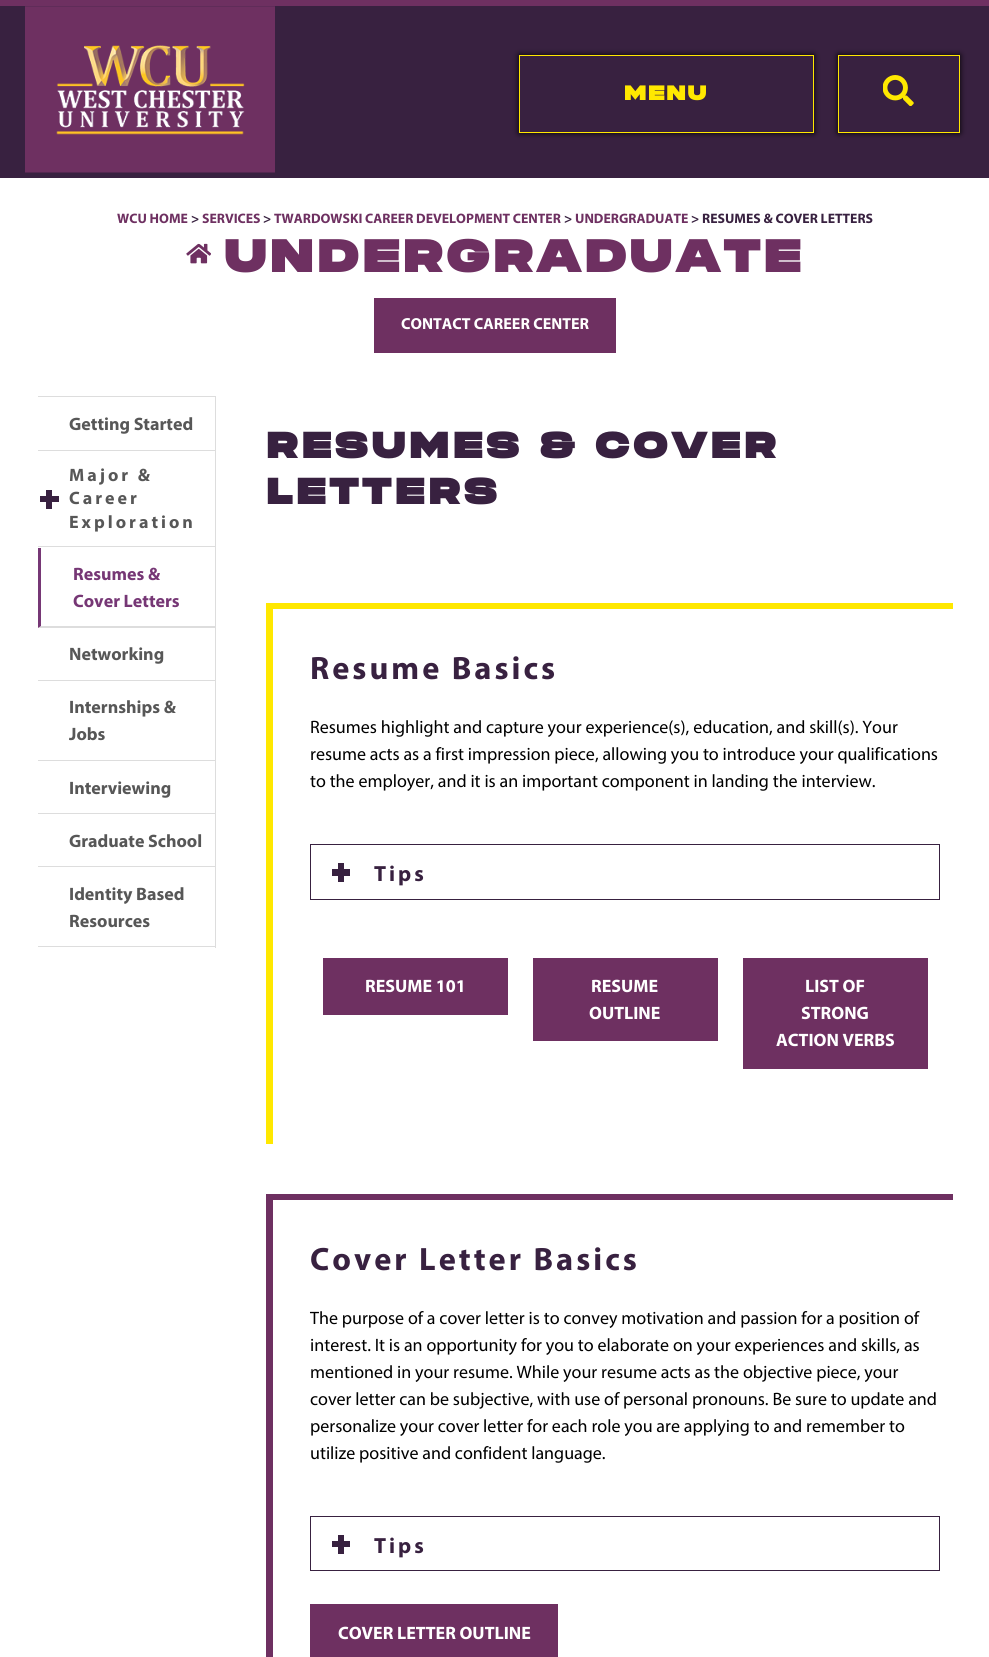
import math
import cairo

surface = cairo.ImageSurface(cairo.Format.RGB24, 989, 1657)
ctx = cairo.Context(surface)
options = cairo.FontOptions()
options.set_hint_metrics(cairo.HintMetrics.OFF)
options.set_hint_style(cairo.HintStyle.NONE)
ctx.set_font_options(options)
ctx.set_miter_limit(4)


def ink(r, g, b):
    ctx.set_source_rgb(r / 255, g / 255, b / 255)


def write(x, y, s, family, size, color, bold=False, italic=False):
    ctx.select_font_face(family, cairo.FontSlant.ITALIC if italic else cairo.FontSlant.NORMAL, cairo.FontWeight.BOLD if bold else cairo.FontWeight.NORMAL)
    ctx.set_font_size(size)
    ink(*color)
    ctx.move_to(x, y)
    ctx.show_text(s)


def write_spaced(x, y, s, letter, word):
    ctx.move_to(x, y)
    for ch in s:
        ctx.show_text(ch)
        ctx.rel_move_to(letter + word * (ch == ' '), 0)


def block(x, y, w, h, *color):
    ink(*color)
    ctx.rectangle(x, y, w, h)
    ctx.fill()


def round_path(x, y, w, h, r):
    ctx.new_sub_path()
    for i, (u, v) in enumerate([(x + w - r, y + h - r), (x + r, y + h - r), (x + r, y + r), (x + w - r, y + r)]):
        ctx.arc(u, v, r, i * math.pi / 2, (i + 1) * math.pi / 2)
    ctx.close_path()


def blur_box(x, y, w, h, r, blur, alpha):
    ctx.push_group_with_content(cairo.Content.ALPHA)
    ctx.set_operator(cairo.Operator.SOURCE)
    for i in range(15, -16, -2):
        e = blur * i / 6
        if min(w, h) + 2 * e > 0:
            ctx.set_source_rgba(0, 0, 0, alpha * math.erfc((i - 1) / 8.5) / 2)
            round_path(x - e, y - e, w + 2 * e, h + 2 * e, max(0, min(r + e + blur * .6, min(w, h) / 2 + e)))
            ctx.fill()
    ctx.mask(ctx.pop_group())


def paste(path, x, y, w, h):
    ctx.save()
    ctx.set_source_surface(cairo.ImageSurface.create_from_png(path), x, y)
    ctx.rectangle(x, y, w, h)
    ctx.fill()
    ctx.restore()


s1 = dict(family="Myriad", size=13.75, color=(110, 48, 97), bold=True)
s2 = dict(family="Myriad", size=13.75, color=(56, 33, 64), bold=True)
s3 = dict(family="Myriad", size=16, color=(255, 255, 255), bold=True)
s4 = dict(family="Myriad", size=18, color=(87, 87, 87), bold=True)
s5 = dict(family="Myriad", size=18, color=(118, 55, 117), bold=True)
s6 = dict(family="Myriad", size=18, color=(0, 0, 0))
s7 = dict(family="Myriad", size=18, color=(255, 255, 255), bold=True)

ink(56, 33, 64)
ctx.paint()
block(0, 0, 989, 6, 110, 48, 97)
paste("pic1.png", 25, 6, 250, 167)
ctx.save()
ctx.set_fill_rule(cairo.FillRule.EVEN_ODD)
ctx.new_path()
ctx.move_to(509, 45)
ctx.line_to(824, 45)
ctx.line_to(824, 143)
ctx.line_to(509, 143)
ctx.close_path()
ctx.move_to(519, 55)
ctx.line_to(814, 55)
ctx.line_to(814, 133)
ctx.line_to(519, 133)
ctx.close_path()
ctx.clip()
ink(0, 0, 0)
blur_box(519, 55, 295, 78, 0, 3, 1)
ctx.restore()
ctx.rectangle(519.5, 55.5, 294, 77)
ink(255, 232, 0)
ctx.set_line_width(1)
ctx.stroke()
ctx.select_font_face("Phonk", cairo.FontSlant.NORMAL, cairo.FontWeight.BOLD)
ctx.set_font_size(20)
write_spaced(624, 100, "MENU", 2, 0)
ctx.save()
ctx.set_fill_rule(cairo.FillRule.EVEN_ODD)
ctx.new_path()
ctx.move_to(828, 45)
ctx.line_to(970, 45)
ctx.line_to(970, 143)
ctx.line_to(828, 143)
ctx.close_path()
ctx.move_to(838, 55)
ctx.line_to(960, 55)
ctx.line_to(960, 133)
ctx.line_to(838, 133)
ctx.close_path()
ctx.clip()
ink(0, 0, 0)
blur_box(838, 55, 122, 78, 0, 3, 1)
ctx.restore()
ctx.rectangle(838.5, 55.5, 121, 77)
ctx.stroke()
paste("pic2.png", 883, 75, 31, 31)
block(0, 178, 989, 1479, 255, 255, 255)
write(117, 223, "WCU HOME", **s1)
write(191, 223, ">", **s2)
write(202, 223, "SERVICES", **s1)
write(263, 223, ">", **s2)
write(274, 223, "TWARDOWSKI CAREER DEVELOPMENT CENTER", **s1)
write(564, 223, ">", **s2)
write(575, 223, "UNDERGRADUATE", **s1)
write(691, 223, "> RESUMES & COVER LETTERS", **s2)
paste("pic3.png", 186, 243, 25, 21)
ctx.select_font_face("Phonk", cairo.FontSlant.NORMAL, cairo.FontWeight.BOLD)
ctx.set_font_size(45)
ink(110, 48, 97)
write_spaced(224, 272, "UNDERGRADUATE", 4, 0)
block(374, 298, 242, 55, 110, 48, 97)
write(401, 329, "CONTACT CAREER CENTER", **s3)
block(38, 396, 178, 1, 221, 221, 221)
block(215, 396, 1, 55, 221, 221, 221)
block(38, 450, 178, 1, 221, 221, 221)
write(69, 430, "Getting Started", **s4)
block(46, 490, 6, 19, 56, 33, 64)
block(40, 496, 19, 6, 56, 33, 64)
block(215, 451, 1, 497, 221, 221, 221)
block(38, 546, 178, 1, 221, 221, 221)
ink(87, 87, 87)
write_spaced(69, 481, "Major &", 3, 0)
write_spaced(69, 504, "Career", 3, 0)
write_spaced(69, 528, "Exploration", 3, 0)
ink(221, 221, 221)
ctx.new_path()
ctx.move_to(216, 628)
ctx.line_to(38, 628)
ctx.line_to(41, 626)
ctx.line_to(215, 626)
ctx.close_path()
ctx.fill()
ink(118, 55, 117)
ctx.new_path()
ctx.move_to(38, 628)
ctx.line_to(38, 548)
ctx.line_to(41, 548)
ctx.line_to(41, 626)
ctx.close_path()
ctx.fill()
write(73, 580, "Resumes &", **s5)
write(73, 607, "Cover Letters", **s5)
block(38, 680, 178, 1, 221, 221, 221)
write(69, 660, "Networking", **s4)
block(38, 760, 178, 1, 221, 221, 221)
write(69, 713, "Internships &", **s4)
write(69, 740, "Jobs", **s4)
block(38, 813, 178, 1, 221, 221, 221)
write(69, 794, "Interviewing", **s4)
block(38, 866, 178, 1, 221, 221, 221)
write(69, 847, "Graduate School", **s4)
block(38, 946, 178, 1, 221, 221, 221)
write(69, 900, "Identity Based", **s4)
write(69, 927, "Resources", **s4)
ctx.select_font_face("Phonk", cairo.FontSlant.NORMAL, cairo.FontWeight.BOLD)
ctx.set_font_size(36)
ink(56, 33, 64)
write_spaced(266, 458, "RESUMES & COVER", 4, 0)
write_spaced(266, 504, "LETTERS", 4, 0)
block(266, 603, 687, 6, 255, 232, 0)
block(266, 603, 7, 541, 255, 232, 0)
ctx.select_font_face("Myriad", cairo.FontSlant.NORMAL, cairo.FontWeight.BOLD)
ctx.set_font_size(32.4)
ink(56, 33, 64)
write_spaced(310, 679, "Resume Basics", 3, 0)
write(310, 733, "Resumes highlight and capture your experience(s), education, and skill(s). Your", **s6)
write(310, 760, "resume acts as a first impression piece, allowing you to introduce your qualifications", **s6)
write(310, 787, "to the employer, and it is an important component in landing the interview.", **s6)
ctx.rectangle(310.5, 844.5, 629, 55)
ink(56, 33, 64)
ctx.stroke()
block(338, 863, 6, 19, 56, 33, 64)
block(332, 869, 18, 7, 56, 33, 64)
ctx.select_font_face("Myriad", cairo.FontSlant.NORMAL, cairo.FontWeight.BOLD)
ctx.set_font_size(22)
write_spaced(374, 881, "Tips", 3, 0)
block(323, 958, 185, 57, 110, 48, 97)
write(365, 992, "RESUME 101", **s7)
block(533, 958, 185, 83, 110, 48, 97)
write(591, 992, "RESUME", **s7)
write(589, 1019, "OUTLINE", **s7)
block(743, 958, 185, 111, 110, 48, 97)
write(805, 992, "LIST OF", **s7)
write(801, 1019, "STRONG", **s7)
write(776, 1046, "ACTION VERBS", **s7)
block(266, 1194, 687, 6, 110, 48, 97)
block(266, 1194, 7, 463, 110, 48, 97)
ctx.set_font_size(32.4)
ink(56, 33, 64)
write_spaced(310, 1270, "Cover Letter Basics", 3, 0)
write(310, 1324, "The purpose of a cover letter is to convey motivation and passion for a position of", **s6)
write(310, 1351, "interest. It is an opportunity for you to elaborate on your experiences and skills, as", **s6)
write(310, 1378, "mentioned in your resume. While your resume acts as the objective piece, your", **s6)
write(310, 1405, "cover letter can be subjective, with use of personal pronouns. Be sure to update and", **s6)
write(310, 1432, "personalize your cover letter for each role you are applying to and remember to", **s6)
write(310, 1459, "utilize positive and confident language.", **s6)
ctx.rectangle(310.5, 1516.5, 629, 54)
ink(56, 33, 64)
ctx.stroke()
block(338, 1535, 6, 19, 56, 33, 64)
block(332, 1541, 18, 6, 56, 33, 64)
ctx.select_font_face("Myriad", cairo.FontSlant.NORMAL, cairo.FontWeight.BOLD)
ctx.set_font_size(22)
write_spaced(374, 1553, "Tips", 3, 0)
block(310, 1604, 248, 53, 110, 48, 97)
write(338, 1639, "COVER LETTER OUTLINE", **s7)
surface.write_to_png("screenshot.png")
